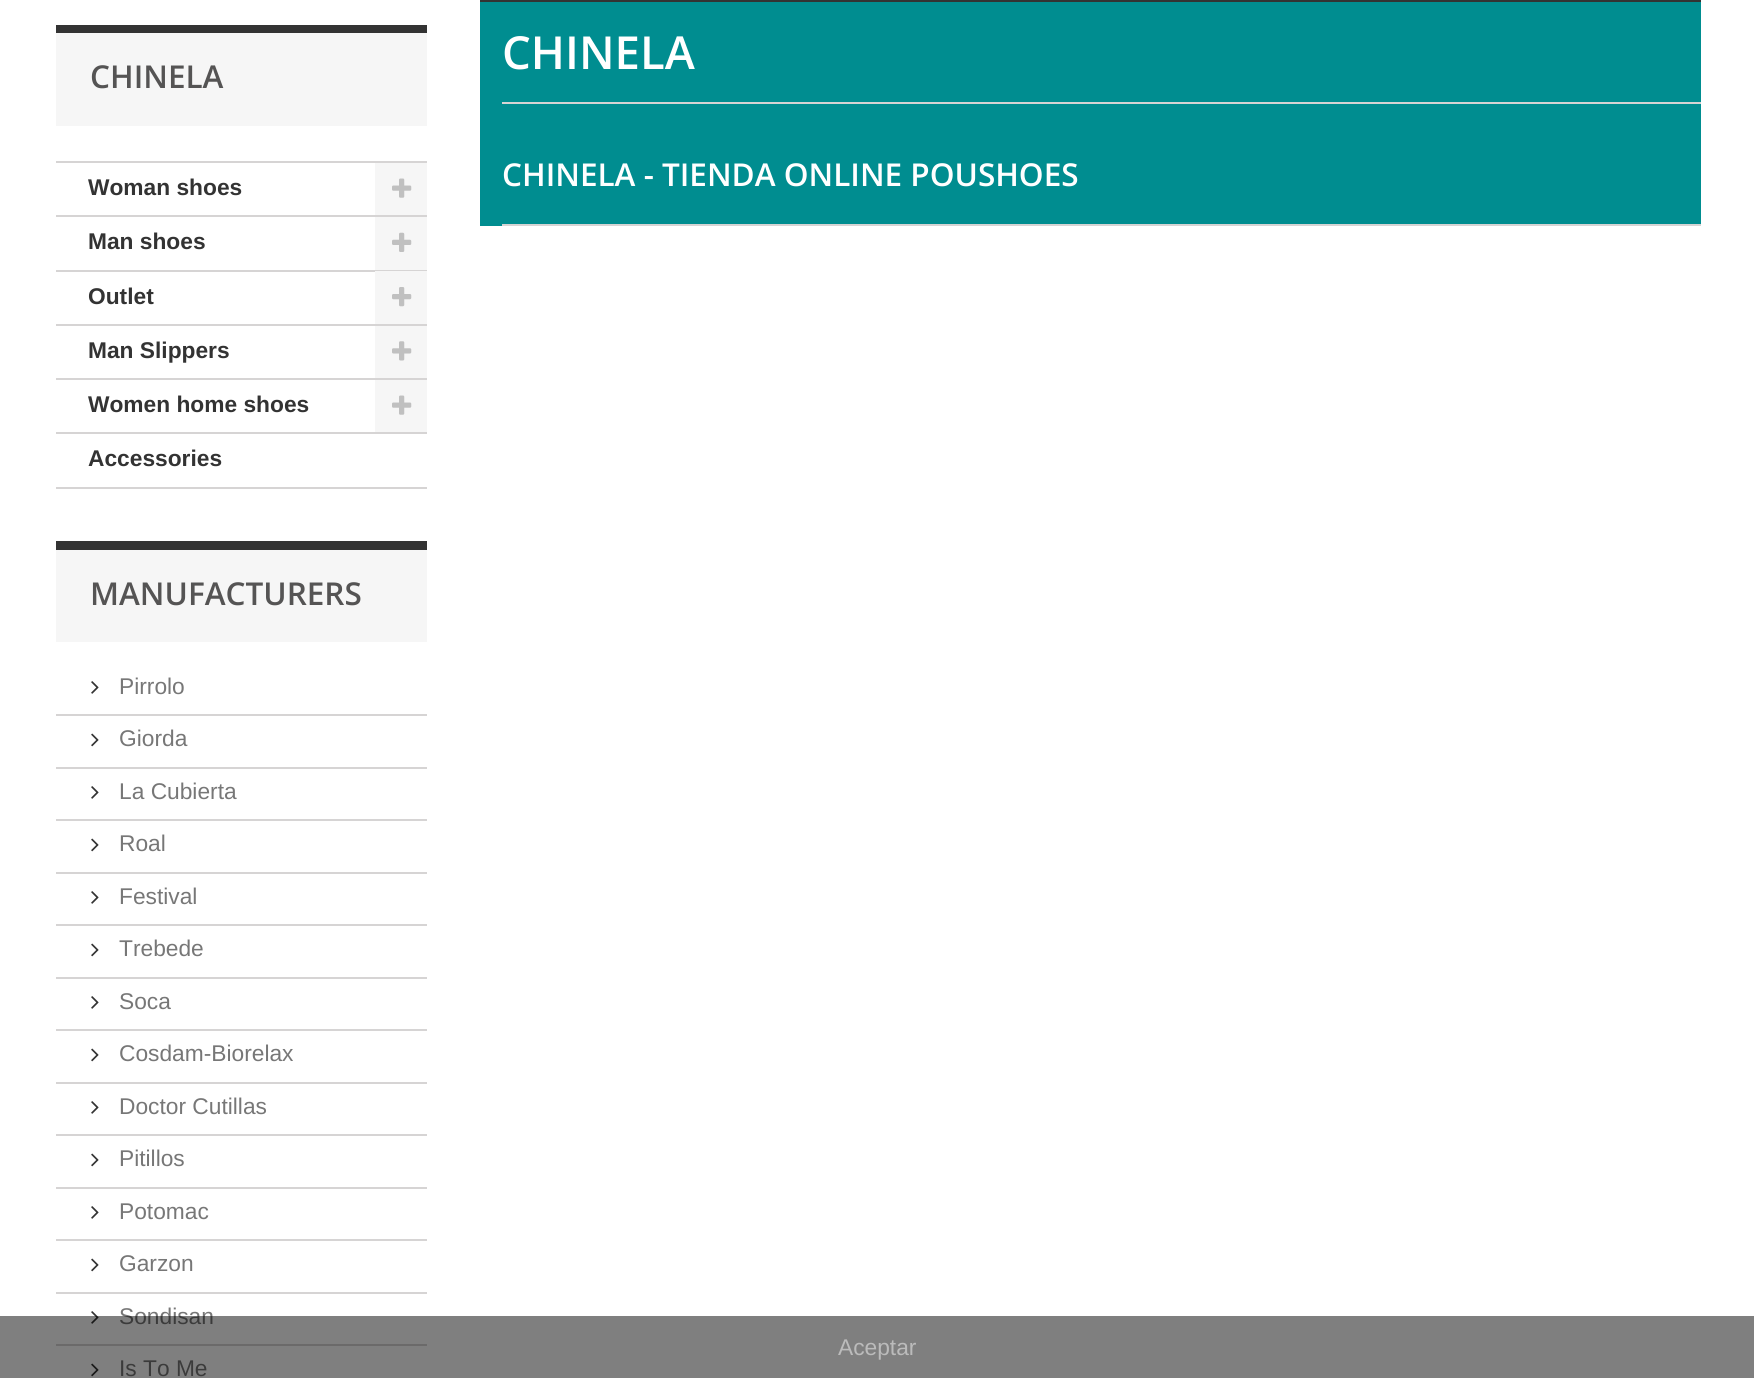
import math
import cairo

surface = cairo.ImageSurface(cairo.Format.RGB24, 1754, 1378)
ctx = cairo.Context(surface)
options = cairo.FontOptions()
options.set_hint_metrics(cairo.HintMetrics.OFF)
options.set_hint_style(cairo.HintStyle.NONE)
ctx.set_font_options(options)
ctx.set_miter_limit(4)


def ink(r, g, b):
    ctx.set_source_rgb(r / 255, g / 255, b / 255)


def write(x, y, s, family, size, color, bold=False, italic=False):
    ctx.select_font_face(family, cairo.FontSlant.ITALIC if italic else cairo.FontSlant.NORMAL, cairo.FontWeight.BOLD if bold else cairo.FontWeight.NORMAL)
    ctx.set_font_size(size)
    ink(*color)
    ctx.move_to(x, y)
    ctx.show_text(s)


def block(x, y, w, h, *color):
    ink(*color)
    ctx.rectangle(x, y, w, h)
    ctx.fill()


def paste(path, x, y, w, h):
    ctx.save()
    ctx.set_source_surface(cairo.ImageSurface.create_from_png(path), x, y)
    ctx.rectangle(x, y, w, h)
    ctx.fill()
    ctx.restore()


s1 = dict(family="Open Sans SemiBold", size=31.5, color=(85, 84, 84))
s2 = dict(family="Liberation Sans", size=22.75, color=(51, 51, 51), bold=True)
s3 = dict(family="Liberation Sans", size=22.75, color=(119, 119, 119))
s4 = dict(family="Open Sans SemiBold", size=45.5, color=(255, 255, 255))
s5 = dict(family="Open Sans SemiBold", size=31.5, color=(255, 255, 255))
s6 = dict(family="Liberation Sans", size=22.75, color=(187, 187, 187))

ink(255, 255, 255)
ctx.paint()
block(56, 33, 371, 93, 246, 246, 246)
block(56, 25, 371, 8, 51, 51, 51)
write(90, 88, "CHINELA", **s1)
block(56, 161, 371, 2, 214, 212, 212)
block(56, 215, 371, 2, 214, 212, 212)
write(88, 195, "Woman shoes", **s2)
block(375, 163, 52, 52, 246, 246, 246)
paste("pic1.png", 392, 178, 20, 20)
block(56, 270, 371, 2, 214, 212, 212)
write(88, 249, "Man shoes", **s2)
block(375, 217, 52, 53, 246, 246, 246)
paste("pic2.png", 392, 232, 20, 20)
block(56, 324, 371, 2, 214, 212, 212)
write(88, 304, "Outlet", **s2)
block(375, 271, 52, 53, 246, 246, 246)
paste("pic3.png", 392, 287, 20, 20)
block(56, 378, 371, 2, 214, 212, 212)
write(88, 358, "Man Slippers", **s2)
block(375, 326, 52, 52, 246, 246, 246)
paste("pic4.png", 392, 341, 20, 20)
block(56, 432, 371, 2, 214, 212, 212)
write(88, 412, "Women home shoes", **s2)
block(375, 380, 52, 52, 246, 246, 246)
paste("pic1.png", 392, 395, 20, 20)
block(56, 487, 371, 2, 214, 212, 212)
write(88, 466, "Accessories", **s2)
block(56, 550, 371, 92, 246, 246, 246)
block(56, 541, 371, 9, 51, 51, 51)
write(90, 605, "MANUFACTURERS", **s1)
paste("pic5.png", 91, 681, 8, 13)
write(119, 694, "Pirrolo", **s3)
block(56, 714, 371, 2, 214, 212, 212)
paste("pic6.png", 91, 733, 8, 14)
write(119, 746, "Giorda", **s3)
block(56, 767, 371, 2, 214, 212, 212)
paste("pic5.png", 91, 786, 8, 13)
write(119, 799, "La Cubierta", **s3)
block(56, 819, 371, 2, 214, 212, 212)
paste("pic6.png", 91, 838, 8, 14)
write(119, 851, "Roal", **s3)
block(56, 872, 371, 2, 214, 212, 212)
paste("pic5.png", 91, 891, 8, 13)
write(119, 904, "Festival", **s3)
block(56, 924, 371, 2, 214, 212, 212)
paste("pic6.png", 91, 943, 8, 14)
write(119, 956, "Trebede", **s3)
block(56, 977, 371, 2, 214, 212, 212)
paste("pic5.png", 91, 996, 8, 13)
write(119, 1009, "Soca", **s3)
block(56, 1029, 371, 2, 214, 212, 212)
paste("pic6.png", 91, 1048, 8, 14)
write(119, 1061, "Cosdam-Biorelax", **s3)
block(56, 1082, 371, 2, 214, 212, 212)
paste("pic5.png", 91, 1101, 8, 13)
write(119, 1114, "Doctor Cutillas", **s3)
block(56, 1134, 371, 2, 214, 212, 212)
paste("pic6.png", 91, 1153, 8, 14)
write(119, 1166, "Pitillos", **s3)
block(56, 1187, 371, 2, 214, 212, 212)
paste("pic5.png", 91, 1206, 8, 13)
write(119, 1219, "Potomac", **s3)
block(56, 1239, 371, 2, 214, 212, 212)
paste("pic6.png", 91, 1258, 8, 14)
write(119, 1271, "Garzon", **s3)
block(56, 1292, 371, 2, 214, 212, 212)
paste("pic5.png", 91, 1311, 8, 13)
write(119, 1324, "Sondisan", **s3)
block(56, 1344, 371, 2, 214, 212, 212)
paste("pic6.png", 91, 1363, 8, 14)
write(119, 1376, "Is To Me", **s3)
block(480, 2, 1221, 224, 0, 141, 144)
block(480, 0, 1221, 2, 51, 51, 51)
block(502, 102, 1199, 2, 214, 212, 212)
write(502, 69, "CHINELA", **s4)
block(502, 224, 1199, 2, 214, 212, 212)
write(502, 186, "CHINELA - TIENDA ONLINE POUSHOES", **s5)
ctx.set_source_rgba(0, 0, 0, 0.5)
ctx.rectangle(0, 1316, 1754, 62)
ctx.fill()
write(838, 1355, "Aceptar", **s6)
surface.write_to_png("screenshot.png")
